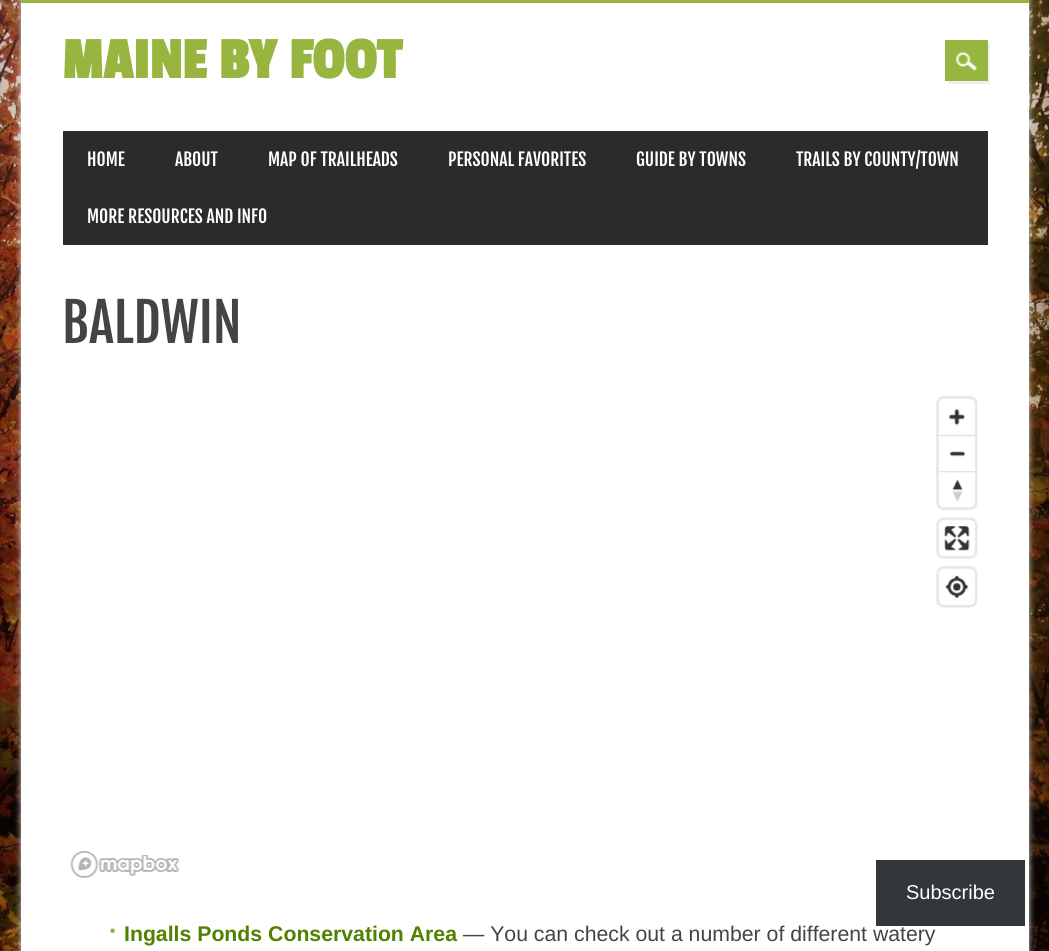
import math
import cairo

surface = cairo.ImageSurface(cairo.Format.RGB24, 1049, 951)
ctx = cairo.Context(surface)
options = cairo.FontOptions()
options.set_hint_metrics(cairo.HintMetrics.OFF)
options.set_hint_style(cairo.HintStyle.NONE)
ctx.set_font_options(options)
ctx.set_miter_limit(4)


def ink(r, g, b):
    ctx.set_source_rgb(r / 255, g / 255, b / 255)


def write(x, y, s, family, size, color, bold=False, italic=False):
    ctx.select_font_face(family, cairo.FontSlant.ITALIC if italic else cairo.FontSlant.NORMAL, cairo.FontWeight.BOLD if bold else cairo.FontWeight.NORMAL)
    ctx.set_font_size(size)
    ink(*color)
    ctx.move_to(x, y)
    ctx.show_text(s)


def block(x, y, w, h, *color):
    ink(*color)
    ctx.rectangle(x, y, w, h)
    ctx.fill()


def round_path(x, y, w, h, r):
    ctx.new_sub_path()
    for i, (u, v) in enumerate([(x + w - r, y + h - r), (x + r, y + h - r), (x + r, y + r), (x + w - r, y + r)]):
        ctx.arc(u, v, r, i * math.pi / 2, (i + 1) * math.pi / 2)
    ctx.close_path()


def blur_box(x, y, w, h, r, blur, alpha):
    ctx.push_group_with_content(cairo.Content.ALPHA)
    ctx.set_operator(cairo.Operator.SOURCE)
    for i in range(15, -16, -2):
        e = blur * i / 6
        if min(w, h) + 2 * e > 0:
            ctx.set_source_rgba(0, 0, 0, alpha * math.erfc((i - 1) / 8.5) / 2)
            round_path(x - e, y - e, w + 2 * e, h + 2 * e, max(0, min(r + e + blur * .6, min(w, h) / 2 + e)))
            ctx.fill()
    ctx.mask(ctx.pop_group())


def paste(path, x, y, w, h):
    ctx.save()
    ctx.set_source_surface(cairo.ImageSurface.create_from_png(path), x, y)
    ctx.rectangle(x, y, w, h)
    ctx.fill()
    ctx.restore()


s1 = dict(family="Passion One", size=60, color=(151, 181, 63), bold=True)
s2 = dict(family="Fjalla One", size=17.5, color=(255, 255, 255))
s3 = dict(family="Fjalla One", size=53, color=(68, 68, 68))
s4 = dict(family="Passion One", size=17.5, color=(151, 181, 63))
s5 = dict(family="Liberation Sans", size=21.25, color=(82, 128, 1), bold=True)
s6 = dict(family="Liberation Sans", size=21.25, color=(68, 68, 68))
s7 = dict(family="Liberation Sans", size=20, color=(255, 255, 255))

ink(255, 255, 255)
ctx.paint()
paste("pic1.png", 0, 0, 1049, 951)
ink(208, 208, 208)
blur_box(21, 0, 1008, 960, 0, 3, 1)
block(21, 3, 1008, 948, 255, 255, 255)
block(21, 0, 1008, 3, 151, 181, 63)
write(62, 78, "MAINE BY FOOT", **s1)
ink(240, 240, 240)
ctx.new_path()
ctx.move_to(948, 81)
ctx.line_to(948, 84)
ctx.line_to(990, 84)
ctx.line_to(990, 43)
ctx.line_to(988, 43)
ctx.line_to(988, 81)
ctx.close_path()
ctx.fill()
block(945, 40, 43, 41, 151, 181, 63)
paste("pic2.png", 956, 52, 21, 19)
block(63, 131, 925, 114, 43, 43, 43)
write(87, 166, "HOME", **s2)
write(175, 166, "ABOUT", **s2)
write(268, 166, "MAP OF TRAILHEADS", **s2)
write(448, 166, "PERSONAL FAVORITES", **s2)
write(636, 166, "GUIDE BY TOWNS", **s2)
write(796, 166, "TRAILS BY COUNTY/TOWN", **s2)
write(87, 223, "MORE RESOURCES AND INFO", **s2)
write(62, 343, "BALDWIN", **s3)
paste("pic3.png", 70, 396, 908, 482)
write(109, 936, "•", **s4)
write(124, 941, "Ingalls Ponds Conservation Area", **s5)
write(463, 941, "— You can check out a number of different watery", **s6)
block(876, 860, 149, 66, 50, 55, 60)
write(906, 899, "Subscribe", **s7)
surface.write_to_png("screenshot.png")
